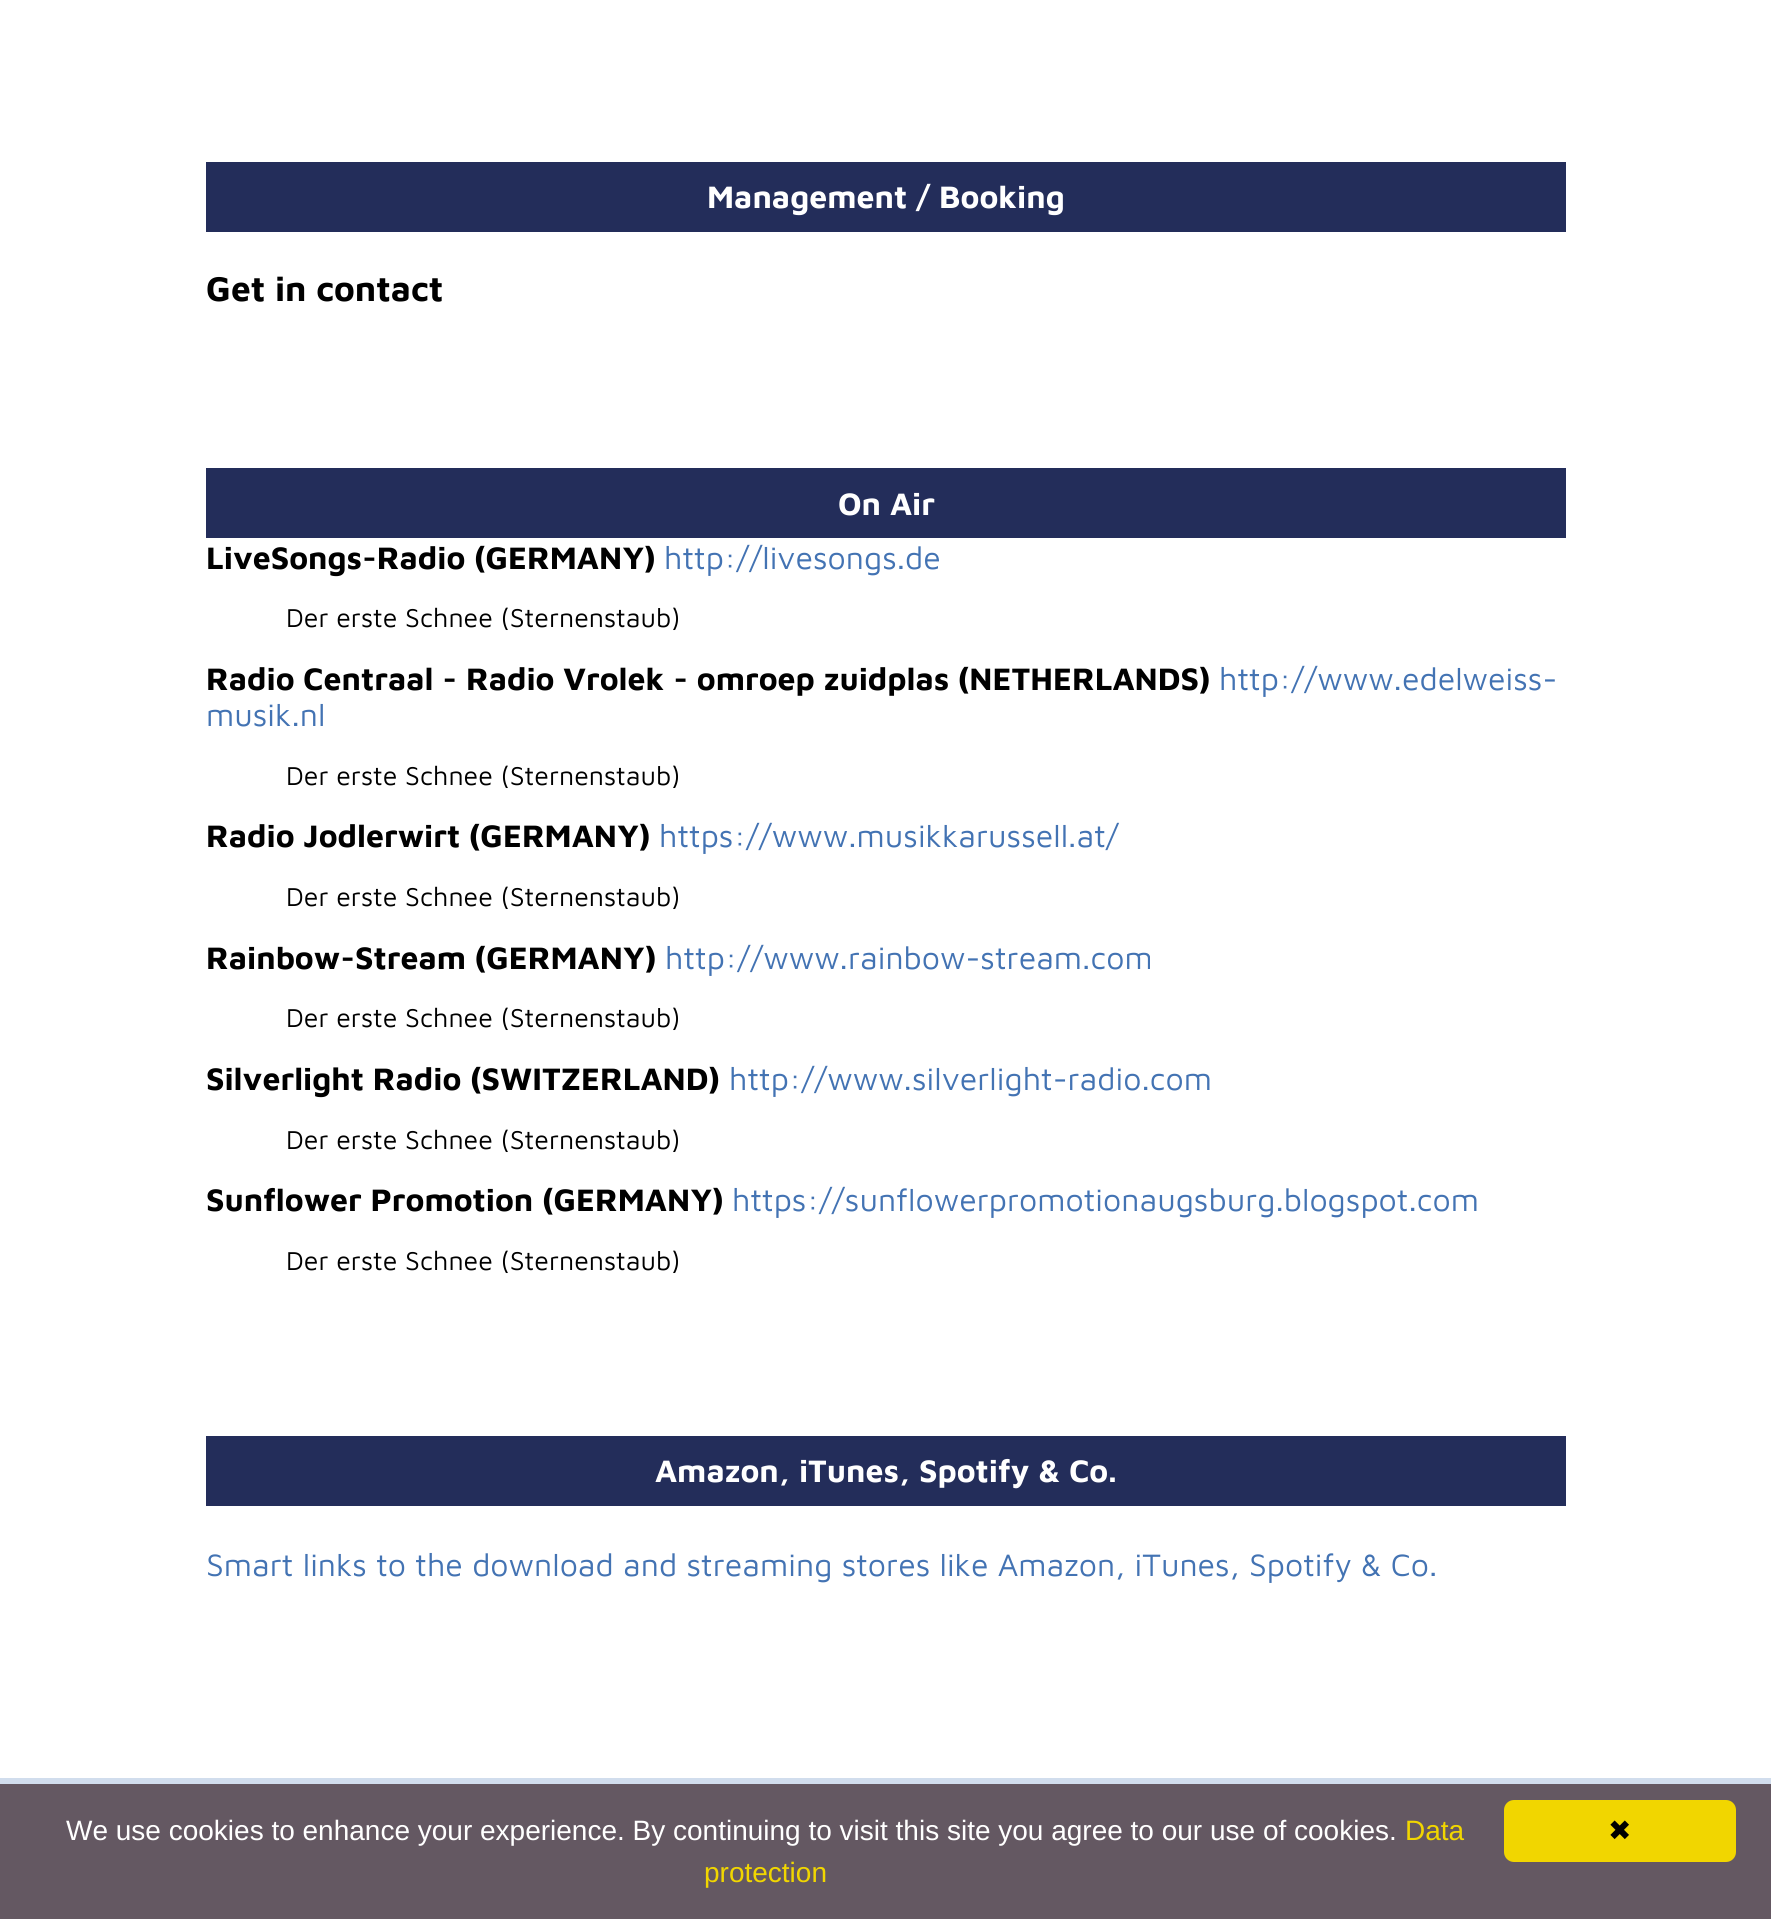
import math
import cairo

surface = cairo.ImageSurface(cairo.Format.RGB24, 1771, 1919)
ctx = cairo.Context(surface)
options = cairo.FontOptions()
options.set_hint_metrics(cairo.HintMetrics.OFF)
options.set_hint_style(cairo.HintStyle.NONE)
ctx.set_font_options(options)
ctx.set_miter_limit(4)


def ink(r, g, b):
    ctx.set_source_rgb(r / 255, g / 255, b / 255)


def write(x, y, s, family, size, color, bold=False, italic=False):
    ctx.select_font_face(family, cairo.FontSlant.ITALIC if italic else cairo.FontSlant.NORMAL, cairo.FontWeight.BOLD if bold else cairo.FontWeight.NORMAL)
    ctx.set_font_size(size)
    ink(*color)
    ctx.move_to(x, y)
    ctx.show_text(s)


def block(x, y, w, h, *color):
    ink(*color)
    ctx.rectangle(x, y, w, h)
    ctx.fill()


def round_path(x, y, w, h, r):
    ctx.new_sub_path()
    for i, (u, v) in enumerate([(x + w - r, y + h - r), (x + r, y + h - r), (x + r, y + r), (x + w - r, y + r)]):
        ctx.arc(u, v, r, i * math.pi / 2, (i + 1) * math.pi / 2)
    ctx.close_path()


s1 = dict(family="Maven Pro", size=32, color=(255, 255, 255), bold=True)
s2 = dict(family="Maven Pro", size=35.25, color=(0, 0, 0), bold=True)
s3 = dict(family="Maven Pro", size=32, color=(0, 0, 0), bold=True)
s4 = dict(family="Maven Pro", size=32, color=(67, 115, 179))
s5 = dict(family="Maven Pro", size=26.7, color=(0, 0, 0))
s6 = dict(family="Liberation Sans", size=28, color=(255, 255, 255))
s7 = dict(family="Liberation Sans", size=28, color=(241, 214, 0))
s8 = dict(family="DejaVu Sans", size=28, color=(0, 0, 0))

ink(255, 255, 255)
ctx.paint()
block(206, 162, 1360, 70, 35, 45, 90)
write(707, 208, "Management / Booking", **s1)
write(206, 301, "Get in contact", **s2)
block(206, 468, 1360, 70, 35, 45, 90)
write(838, 515, "On Air", **s1)
write(206, 569, "LiveSongs-Radio (GERMANY)", **s3)
write(664, 569, "http://livesongs.de", **s4)
write(286, 627, "Der erste Schnee (Sternenstaub)", **s5)
write(206, 690, "Radio Centraal - Radio Vrolek - omroep zuidplas (NETHERLANDS)", **s3)
write(1219, 690, "http://www.edelweiss-", **s4)
write(206, 726, "musik.nl", **s4)
write(286, 785, "Der erste Schnee (Sternenstaub)", **s5)
write(206, 847, "Radio Jodlerwirt (GERMANY)", **s3)
write(659, 847, "https://www.musikkarussell.at/", **s4)
write(286, 906, "Der erste Schnee (Sternenstaub)", **s5)
write(206, 969, "Rainbow-Stream (GERMANY)", **s3)
write(665, 969, "http://www.rainbow-stream.com", **s4)
write(286, 1027, "Der erste Schnee (Sternenstaub)", **s5)
write(206, 1090, "Silverlight Radio (SWITZERLAND)", **s3)
write(729, 1090, "http://www.silverlight-radio.com", **s4)
write(286, 1149, "Der erste Schnee (Sternenstaub)", **s5)
write(206, 1211, "Sunflower Promotion (GERMANY)", **s3)
write(732, 1211, "https://sunflowerpromotionaugsburg.blogspot.com", **s4)
write(286, 1270, "Der erste Schnee (Sternenstaub)", **s5)
block(206, 1436, 1360, 70, 35, 45, 90)
write(655, 1482, "Amazon, iTunes, Spotify & Co.", **s1)
write(206, 1576, "Smart links to the download and streaming stores like Amazon, iTunes, Spotify & Co.", **s4)
block(0, 1778, 1771, 6, 209, 221, 237)
block(0, 1784, 1771, 135, 100, 88, 98)
write(66, 1840, "We use cookies to enhance your experience. By continuing to visit this site you agree to our use of cookies.", **s6)
write(1405, 1840, "Data", **s7)
write(704, 1882, "protection", **s7)
round_path(1504, 1800, 232, 62, 10)
ctx.fill()
write(1608, 1840, "✖", **s8)
surface.write_to_png("screenshot.png")
